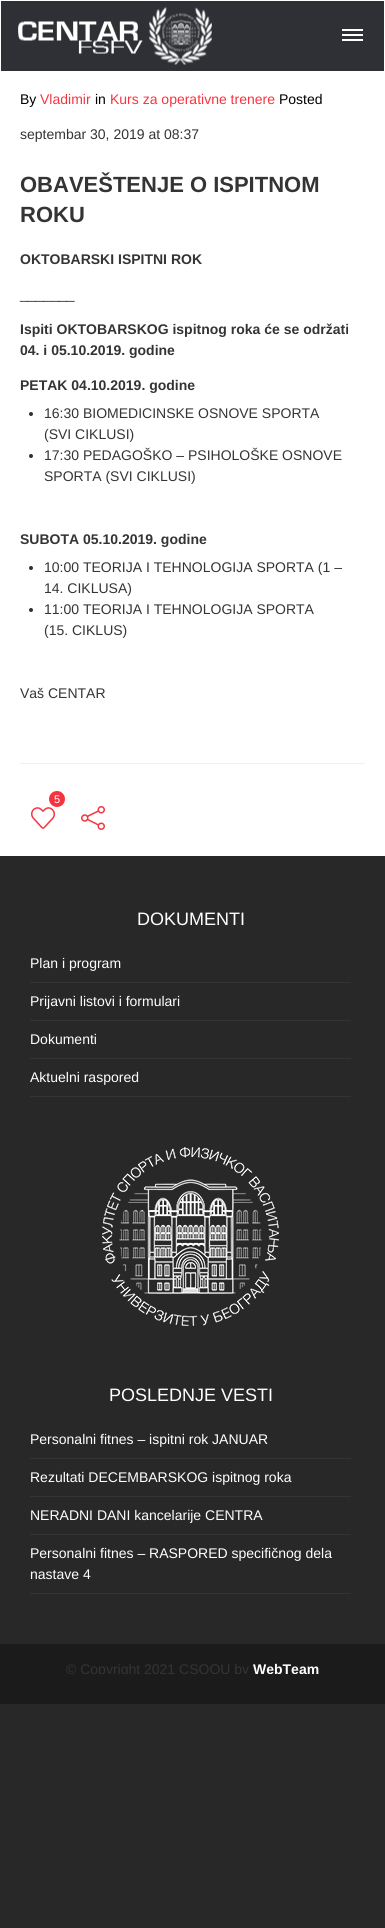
import math
import cairo

surface = cairo.ImageSurface(cairo.Format.RGB24, 385, 1928)
ctx = cairo.Context(surface)
options = cairo.FontOptions()
options.set_hint_metrics(cairo.HintMetrics.OFF)
options.set_hint_style(cairo.HintStyle.NONE)
ctx.set_font_options(options)
ctx.set_miter_limit(4)


def ink(r, g, b):
    ctx.set_source_rgb(r / 255, g / 255, b / 255)


def write(x, y, s, family, size, color, bold=False, italic=False):
    ctx.select_font_face(family, cairo.FontSlant.ITALIC if italic else cairo.FontSlant.NORMAL, cairo.FontWeight.BOLD if bold else cairo.FontWeight.NORMAL)
    ctx.set_font_size(size)
    ink(*color)
    ctx.move_to(x, y)
    ctx.show_text(s)


def block(x, y, w, h, *color):
    ink(*color)
    ctx.rectangle(x, y, w, h)
    ctx.fill()


def paste(path, x, y, w, h):
    ctx.save()
    ctx.set_source_surface(cairo.ImageSurface.create_from_png(path), x, y)
    ctx.rectangle(x, y, w, h)
    ctx.fill()
    ctx.restore()


s1 = dict(family="Liberation Sans", size=14, color=(0, 0, 0))
s2 = dict(family="Liberation Sans", size=14, color=(246, 52, 64))
s3 = dict(family="Liberation Sans", size=14, color=(52, 52, 52))
s4 = dict(family="Liberation Sans", size=22, color=(52, 52, 52), bold=True)
s5 = dict(family="Liberation Sans", size=14, color=(52, 52, 52), bold=True)
s6 = dict(family="Liberation Sans", size=11, color=(255, 255, 255))
s7 = dict(family="Liberation Sans", size=18, color=(255, 255, 255))
s8 = dict(family="Liberation Sans", size=14, color=(255, 255, 255))
s9 = dict(family="Liberation Sans", size=14, color=(255, 255, 255), bold=True)

ink(40, 40, 40)
ctx.paint()
ctx.rectangle(0.5, 0.5, 384, 71)
ink(255, 255, 255)
ctx.set_line_width(1)
ctx.stroke()
block(1, 1, 383, 70, 47, 48, 53)
paste("pic1.png", 18, 7, 194, 58)
block(342, 34, 21, 2, 255, 255, 255)
block(342, 29, 21, 2, 255, 255, 255)
block(342, 39, 21, 2, 255, 255, 255)
block(0, 72, 385, 784, 255, 255, 255)
write(20, 104, "By", **s1)
write(40, 104, "Vladimir", **s2)
write(95, 104, "in", **s1)
write(110, 104, "Kurs za operativne trenere", **s2)
write(279, 104, "Posted", **s1)
write(20, 139, "septembar 30, 2019 at 08:37", **s3)
write(20, 192, "OBAVEŠTENJE O ISPITNOM", **s4)
write(20, 222, "ROKU", **s4)
write(20, 264, "OKTOBARSKI ISPITNI ROK", **s5)
write(20, 299, "_______", **s3)
write(20, 334, "Ispiti OKTOBARSKOG ispitnog roka će se održati", **s5)
write(20, 355, "04. i 05.10.2019. godine", **s5)
write(20, 390, "PETAK 04.10.2019. godine", **s5)
ink(47, 48, 53)
ctx.new_path()
ctx.arc(31, 414, 2, 0, 2 * math.pi)
ctx.fill()
write(44, 418, "16:30 BIOMEDICINSKE OSNOVE SPORTA", **s3)
write(44, 439, "(SVI CIKLUSI)", **s3)
ink(47, 48, 53)
ctx.new_path()
ctx.arc(31, 456, 2, 0, 2 * math.pi)
ctx.fill()
write(44, 460, "17:30 PEDAGOŠKO – PSIHOLOŠKE OSNOVE", **s3)
write(44, 481, "SPORTA (SVI CIKLUSI)", **s3)
write(20, 544, "SUBOTA 05.10.2019. godine", **s5)
ink(47, 48, 53)
ctx.new_path()
ctx.arc(31, 568, 2, 0, 2 * math.pi)
ctx.fill()
write(44, 572, "10:00 TEORIJA I TEHNOLOGIJA SPORTA (1 –", **s3)
write(44, 593, "14. CIKLUSA)", **s3)
ink(47, 48, 53)
ctx.new_path()
ctx.arc(31, 610, 2, 0, 2 * math.pi)
ctx.fill()
write(44, 614, "11:00 TEORIJA I TEHNOLOGIJA SPORTA", **s3)
write(44, 635, "(15. CIKLUS)", **s3)
write(20, 698, "Vaš CENTAR", **s3)
block(20, 763, 345, 1, 240, 240, 240)
ink(246, 52, 64)
ctx.new_path()
ctx.arc(57, 799, 8, 0, 2 * math.pi)
ctx.fill()
write(54, 803, "5", **s6)
paste("pic2.png", 31, 807, 25, 22)
paste("pic3.png", 81, 806, 24, 24)
write(137, 925, "DOKUMENTI", **s7)
block(30, 982, 321, 1, 52, 52, 52)
write(30, 968, "Plan i program", **s8)
block(30, 1020, 321, 1, 52, 52, 52)
write(30, 1006, "Prijavni listovi i formulari", **s8)
block(30, 1058, 321, 1, 52, 52, 52)
write(30, 1044, "Dokumenti", **s8)
block(30, 1096, 321, 1, 52, 52, 52)
write(30, 1082, "Aktuelni raspored", **s8)
paste("pic4.png", 102, 1147, 177, 179)
write(109, 1401, "POSLEDNJE VESTI", **s7)
block(30, 1458, 321, 1, 52, 52, 52)
write(30, 1444, "Personalni fitnes – ispitni rok JANUAR", **s8)
block(30, 1496, 321, 1, 52, 52, 52)
write(30, 1482, "Rezultati DECEMBARSKOG ispitnog roka", **s8)
block(30, 1534, 321, 1, 52, 52, 52)
write(30, 1520, "NERADNI DANI kancelarije CENTRA", **s8)
block(30, 1593, 321, 1, 52, 52, 52)
write(30, 1558, "Personalni fitnes – RASPORED specifičnog dela", **s8)
write(30, 1579, "nastave 4", **s8)
block(0, 1644, 385, 60, 27, 27, 27)
ctx.save()
ctx.rectangle(10, 1644, 365, 30)
ctx.clip()
write(66, 1674, "© Copyright 2021 CSOOU by", **s3)
write(253, 1674, "WebTeam", **s9)
ctx.restore()
surface.write_to_png("screenshot.png")
